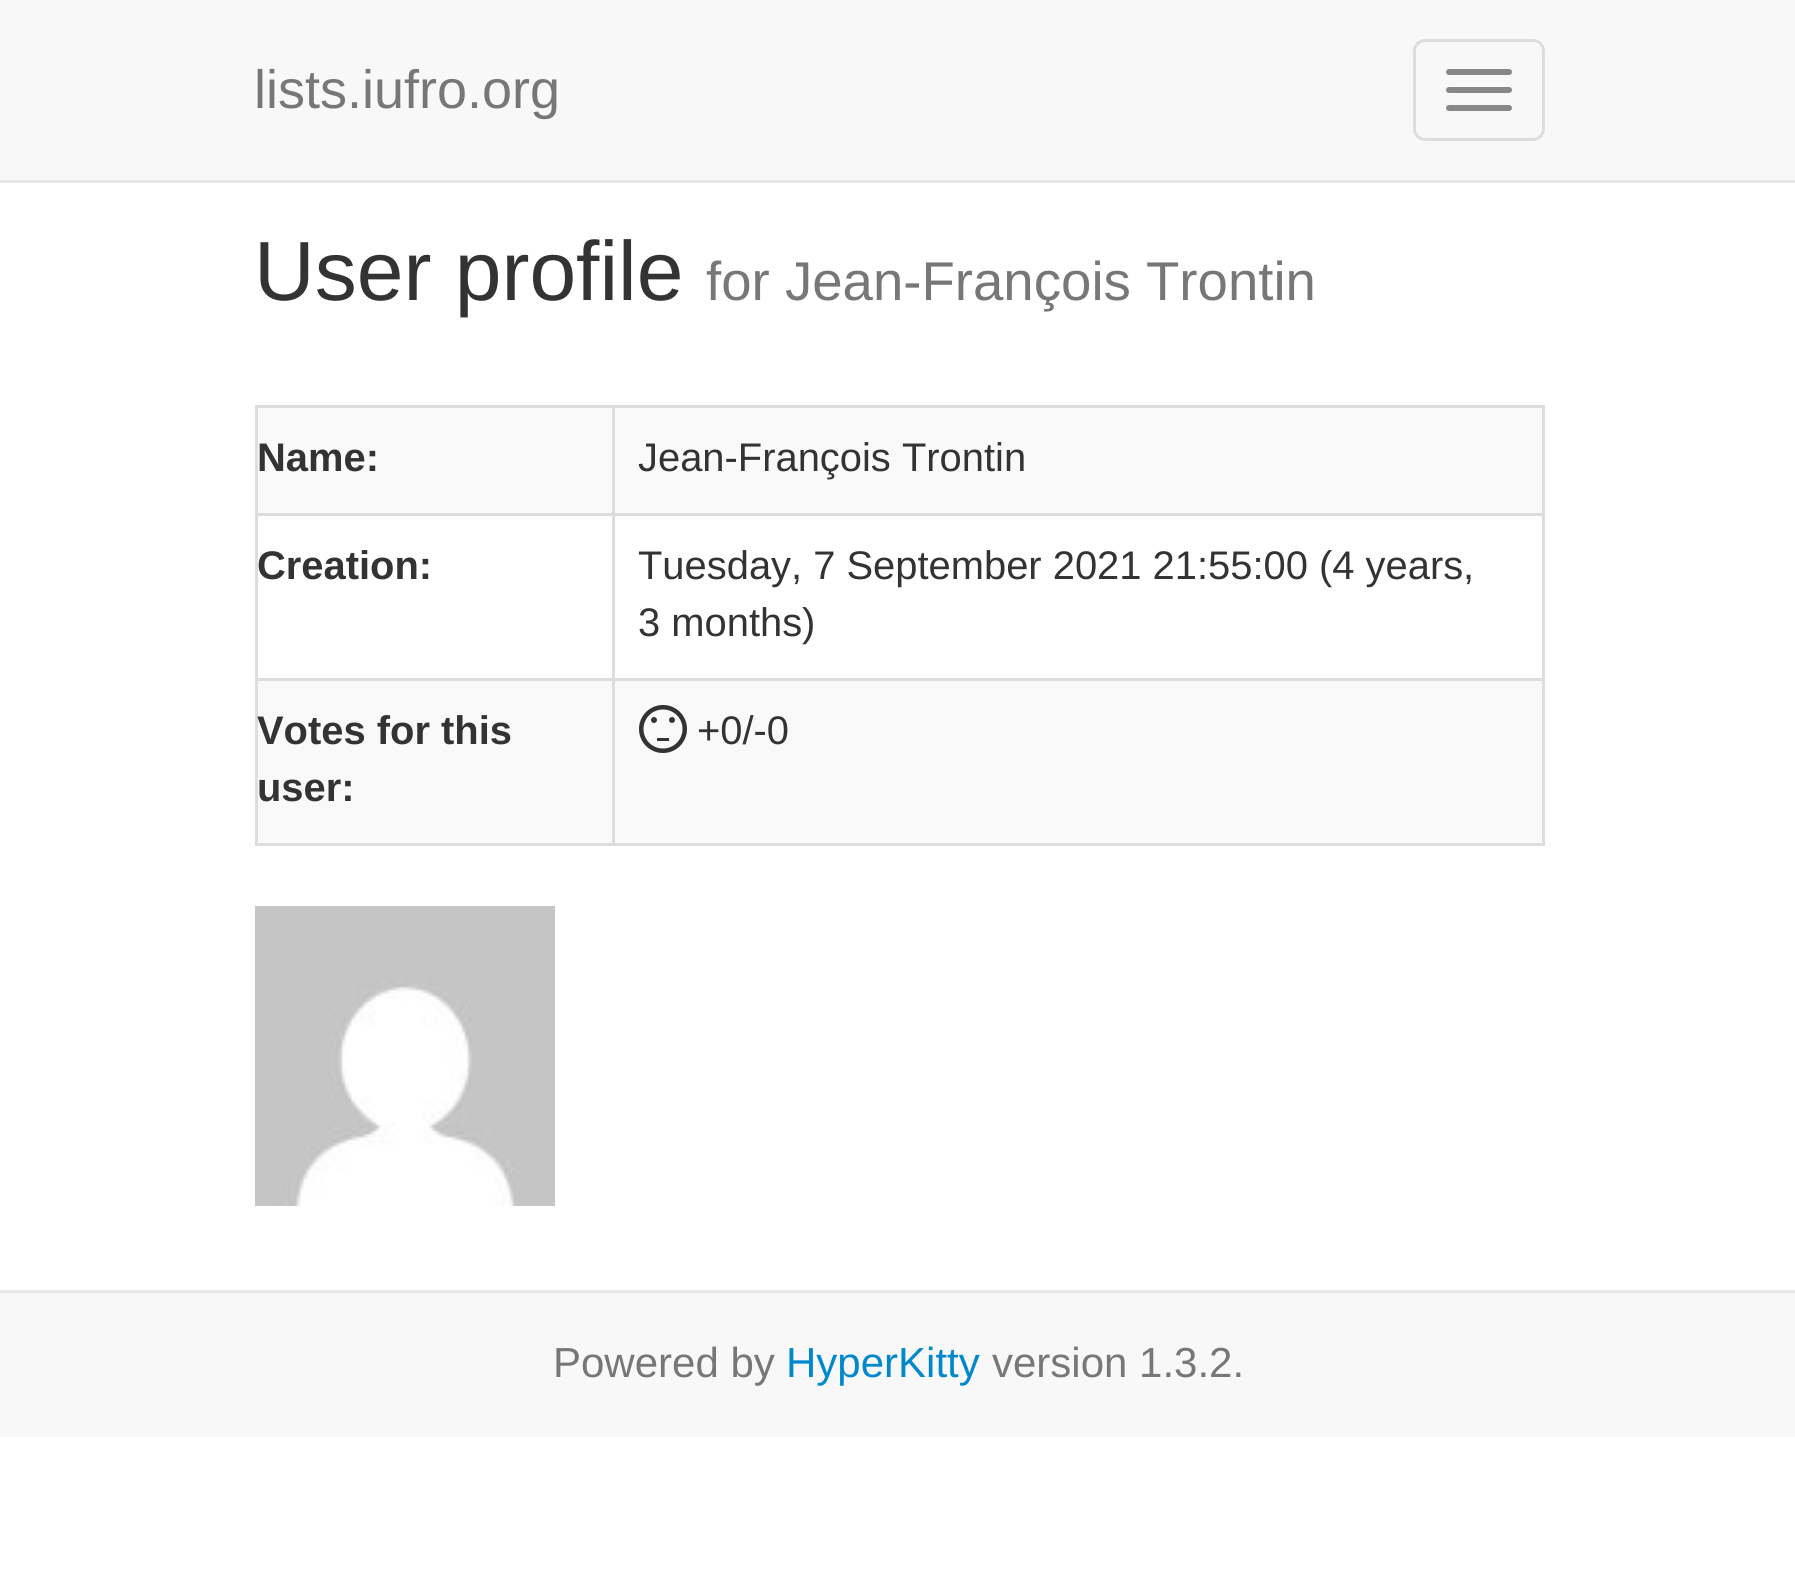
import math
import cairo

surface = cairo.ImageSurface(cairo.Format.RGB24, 1795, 1584)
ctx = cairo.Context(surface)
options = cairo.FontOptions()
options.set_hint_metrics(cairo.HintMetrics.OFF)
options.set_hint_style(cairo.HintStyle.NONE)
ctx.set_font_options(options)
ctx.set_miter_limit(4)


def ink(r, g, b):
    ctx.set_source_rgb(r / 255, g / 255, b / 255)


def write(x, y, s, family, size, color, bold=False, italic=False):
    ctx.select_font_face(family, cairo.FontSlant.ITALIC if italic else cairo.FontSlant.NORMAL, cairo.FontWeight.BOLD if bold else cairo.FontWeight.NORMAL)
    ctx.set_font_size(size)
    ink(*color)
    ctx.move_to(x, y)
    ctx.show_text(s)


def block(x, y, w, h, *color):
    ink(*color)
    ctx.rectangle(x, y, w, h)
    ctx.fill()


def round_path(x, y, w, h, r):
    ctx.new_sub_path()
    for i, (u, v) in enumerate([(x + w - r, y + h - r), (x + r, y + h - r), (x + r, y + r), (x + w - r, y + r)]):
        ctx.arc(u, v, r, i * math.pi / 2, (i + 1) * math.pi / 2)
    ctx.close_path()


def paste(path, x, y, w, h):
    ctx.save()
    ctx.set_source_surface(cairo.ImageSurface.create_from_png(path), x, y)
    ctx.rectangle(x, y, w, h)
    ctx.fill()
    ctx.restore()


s1 = dict(family="Liberation Sans", size=54, color=(119, 119, 119))
s2 = dict(family="Liberation Sans", size=84, color=(51, 51, 51))
s3 = dict(family="Liberation Sans", size=54.6, color=(119, 119, 119))
s4 = dict(family="Liberation Sans", size=39.9, color=(51, 51, 51), bold=True)
s5 = dict(family="Liberation Sans", size=39.9, color=(51, 51, 51))
s6 = dict(family="Liberation Sans", size=42, color=(119, 119, 119))
s7 = dict(family="Liberation Sans", size=42, color=(0, 136, 204))

ink(255, 255, 255)
ctx.paint()
block(0, 0, 1795, 180, 248, 248, 248)
block(0, 180, 1795, 3, 231, 231, 231)
write(254, 108, "lists.iufro.org", **s1)
round_path(1414.5, 40.5, 129, 99, 10.5)
ink(221, 221, 221)
ctx.set_line_width(3)
ctx.stroke()
ink(136, 136, 136)
round_path(1446, 69, 66, 6, 3)
ctx.fill()
round_path(1446, 87, 66, 6, 3)
ctx.fill()
round_path(1446, 105, 66, 6, 3)
ctx.fill()
write(254, 300, "User profile", **s2)
write(706, 300, "for Jean-François Trontin", **s3)
block(255, 405, 1290, 3, 221, 221, 221)
block(1542, 405, 3, 441, 221, 221, 221)
block(255, 843, 1290, 3, 221, 221, 221)
block(255, 405, 3, 441, 221, 221, 221)
block(258, 408, 1284, 105, 249, 249, 249)
write(257, 471, "Name:", **s4)
block(612, 513, 933, 3, 221, 221, 221)
block(612, 678, 933, 3, 221, 221, 221)
block(258, 681, 1284, 162, 249, 249, 249)
block(612, 678, 3, 168, 221, 221, 221)
block(255, 678, 360, 3, 221, 221, 221)
block(612, 513, 3, 168, 221, 221, 221)
block(255, 513, 360, 3, 221, 221, 221)
block(612, 405, 3, 111, 221, 221, 221)
write(638, 471, "Jean-François Trontin", **s5)
write(257, 579, "Creation:", **s4)
write(638, 579, "Tuesday, 7 September 2021 21:55:00 (4 years,", **s5)
write(638, 636, "3 months)", **s5)
write(257, 744, "Votes for this", **s4)
write(257, 801, "user:", **s4)
paste("pic1.png", 639, 705, 48, 48)
write(697, 744, "+0/-0", **s5)
paste("pic2.png", 255, 906, 300, 300)
block(0, 1293, 1795, 144, 248, 248, 248)
block(0, 1290, 1795, 3, 231, 231, 231)
write(553, 1377, "Powered by", **s6)
write(786, 1377, "HyperKitty", **s7)
write(992, 1377, "version 1.3.2.", **s6)
surface.write_to_png("screenshot.png")
